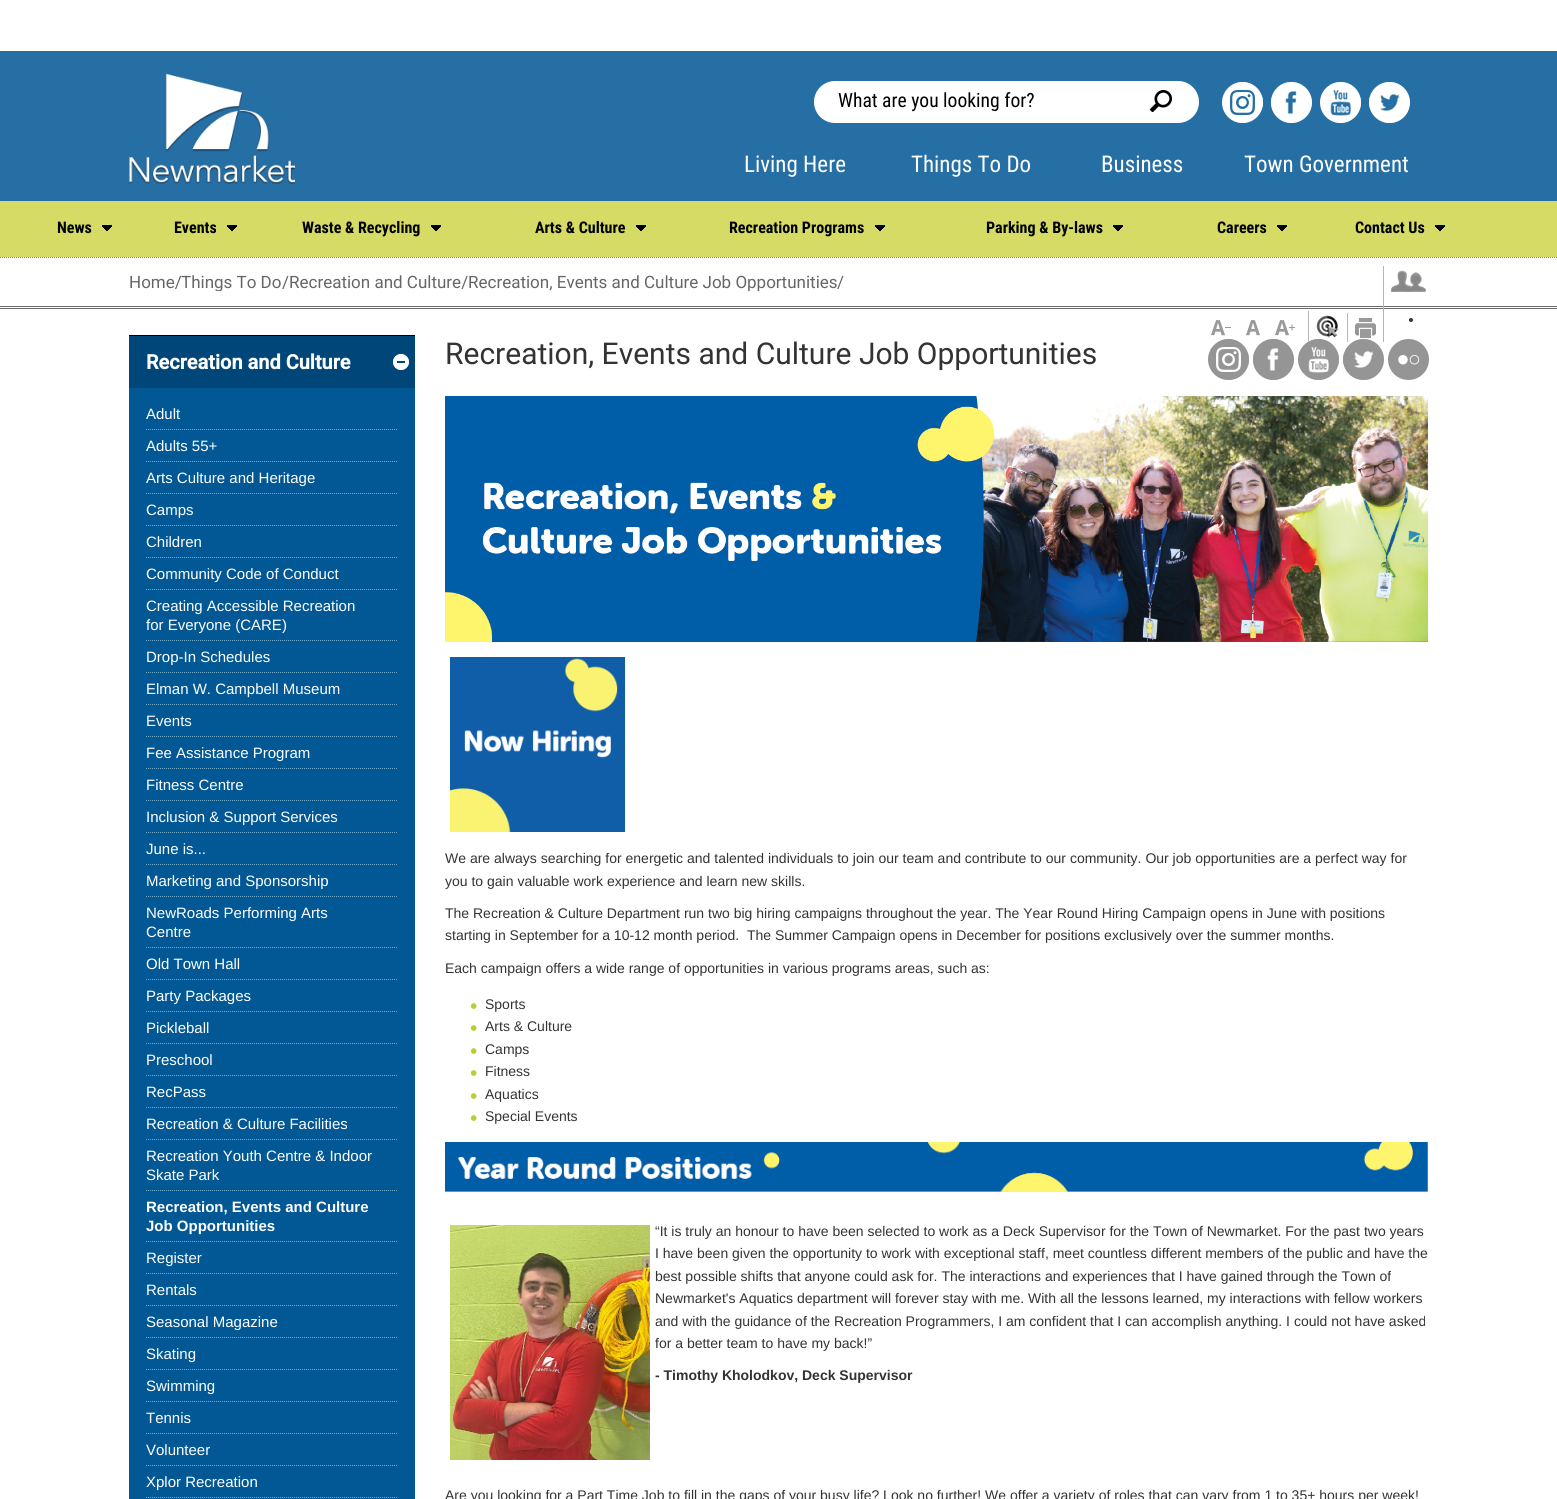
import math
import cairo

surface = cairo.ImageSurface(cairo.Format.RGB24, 1557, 1499)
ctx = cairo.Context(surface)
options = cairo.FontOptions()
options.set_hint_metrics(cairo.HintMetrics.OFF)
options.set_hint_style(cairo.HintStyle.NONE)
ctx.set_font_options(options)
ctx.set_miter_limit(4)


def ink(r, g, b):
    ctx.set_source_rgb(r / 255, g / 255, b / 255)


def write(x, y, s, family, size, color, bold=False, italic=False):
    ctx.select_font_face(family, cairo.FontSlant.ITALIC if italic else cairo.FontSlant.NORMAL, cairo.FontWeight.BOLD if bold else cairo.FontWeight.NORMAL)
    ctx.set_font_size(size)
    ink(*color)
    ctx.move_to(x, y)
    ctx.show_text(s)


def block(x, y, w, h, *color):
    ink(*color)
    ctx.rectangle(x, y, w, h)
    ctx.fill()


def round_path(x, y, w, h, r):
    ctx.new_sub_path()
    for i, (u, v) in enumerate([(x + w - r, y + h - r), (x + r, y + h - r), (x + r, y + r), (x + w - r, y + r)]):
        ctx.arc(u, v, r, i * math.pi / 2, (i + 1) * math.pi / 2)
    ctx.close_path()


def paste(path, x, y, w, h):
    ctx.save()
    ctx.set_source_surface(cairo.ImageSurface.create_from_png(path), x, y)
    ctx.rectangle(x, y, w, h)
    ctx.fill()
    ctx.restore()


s1 = dict(family="Roboto Condensed", size=19.6, color=(0, 0, 0))
s2 = dict(family="Roboto Condensed", size=23, color=(255, 255, 255))
s3 = dict(family="Roboto Condensed", size=16, color=(0, 0, 0), bold=True)
s4 = dict(family="Roboto", size=17, color=(102, 102, 102))
s5 = dict(family="Roboto", size=20, color=(255, 255, 255), bold=True)
s6 = dict(family="Liberation Sans", size=15, color=(255, 255, 255))
s7 = dict(family="Liberation Sans", size=15, color=(255, 255, 255), bold=True)
s8 = dict(family="Roboto", size=30, color=(51, 51, 51))
s9 = dict(family="Liberation Sans", size=14, color=(51, 51, 51))
s10 = dict(family="Liberation Sans", size=21, color=(189, 204, 47))
s11 = dict(family="Liberation Sans", size=14, color=(51, 51, 51), bold=True)

ink(255, 255, 255)
ctx.paint()
block(0, 51, 1557, 150, 38, 111, 165)
paste("pic1.png", 129, 73, 166, 112)
ink(255, 255, 255)
round_path(814, 81, 385, 42, 21)
ctx.fill()
write(838, 107, "What are you looking for?", **s1)
paste("pic2.png", 1150, 90, 22, 22)
paste("pic3.png", 1222, 82, 41, 41)
paste("pic4.png", 1271, 82, 41, 41)
paste("pic5.png", 1320, 82, 41, 41)
paste("pic6.png", 1369, 82, 41, 41)
write(744, 172, "Living Here", **s2)
write(911, 172, "Things To Do", **s2)
write(1101, 172, "Business", **s2)
write(1244, 172, "Town Government", **s2)
block(0, 201, 1557, 56, 213, 219, 100)
paste("pic7.png", 102, 225, 10, 6)
write(57, 233, "News", **s3)
paste("pic7.png", 227, 225, 10, 6)
write(174, 233, "Events", **s3)
paste("pic7.png", 431, 225, 10, 6)
write(302, 233, "Waste & Recycling", **s3)
paste("pic7.png", 636, 225, 10, 6)
write(535, 233, "Arts & Culture", **s3)
paste("pic7.png", 875, 225, 10, 6)
write(729, 233, "Recreation Programs", **s3)
paste("pic7.png", 1113, 225, 10, 6)
write(986, 233, "Parking & By-laws", **s3)
paste("pic7.png", 1277, 225, 10, 6)
write(1217, 233, "Careers", **s3)
paste("pic7.png", 1435, 225, 10, 6)
write(1355, 233, "Contact Us", **s3)
ctx.new_path()
ctx.move_to(0, 257.5)
ctx.line_to(1557, 257.5)
ink(144, 128, 125)
ctx.set_line_width(1)
ctx.set_dash([1, 1])
ctx.stroke()
block(0, 306, 1557, 1, 109, 109, 109)
block(0, 308, 1557, 1, 109, 109, 109)
write(129, 288, "Home/", **s4)
ctx.save()
ctx.rectangle(129, 273, 1020, 18)
ctx.clip()
write(181, 288, "Things To Do", **s4)
ctx.restore()
write(282, 288, "/Recreation and Culture/", **s4)
ctx.save()
ctx.rectangle(129, 273, 1020, 18)
ctx.clip()
write(468, 288, "Recreation, Events and Culture Job Opportunities", **s4)
ctx.restore()
write(837, 288, "/", **s4)
paste("pic8.png", 1211, 320, 20, 16)
paste("pic9.png", 1246, 320, 14, 16)
paste("pic10.png", 1275, 320, 20, 16)
paste("pic17.png", 1298, 339, 41, 41)
block(1308, 311, 1, 31, 182, 182, 182)
paste("pic11.png", 1316, 315, 23, 23)
paste("pic18.png", 1343, 339, 41, 41)
block(1347, 313, 1, 29, 182, 182, 182)
paste("pic12.png", 1355, 318, 21, 20)
block(1383, 266, 1, 76, 182, 182, 182)
paste("pic13.png", 1391, 270, 35, 22)
ink(51, 51, 51)
ctx.arc(1411, 320, 2, 0, 2 * math.pi)
ctx.fill()
block(129, 335, 286, 1, 0, 0, 0)
block(129, 336, 286, 52, 0, 70, 121)
paste("pic14.png", 393, 354, 16, 16)
write(146, 369, "Recreation and Culture", **s5)
block(129, 388, 286, 1111, 2, 88, 149)
write(146, 419, "Adult", **s6)
ctx.new_path()
ctx.move_to(146, 429.5)
ctx.line_to(398, 429.5)
ink(113, 171, 203)
ctx.stroke()
write(146, 451, "Adults 55+", **s6)
ctx.new_path()
ctx.move_to(146, 461.5)
ctx.line_to(398, 461.5)
ink(113, 171, 203)
ctx.stroke()
write(146, 483, "Arts Culture and Heritage", **s6)
ctx.new_path()
ctx.move_to(146, 493.5)
ctx.line_to(398, 493.5)
ink(113, 171, 203)
ctx.stroke()
write(146, 515, "Camps", **s6)
ctx.new_path()
ctx.move_to(146, 525.5)
ctx.line_to(398, 525.5)
ink(113, 171, 203)
ctx.stroke()
write(146, 547, "Children", **s6)
ctx.new_path()
ctx.move_to(146, 557.5)
ctx.line_to(398, 557.5)
ink(113, 171, 203)
ctx.stroke()
write(146, 579, "Community Code of Conduct", **s6)
ctx.new_path()
ctx.move_to(146, 589.5)
ctx.line_to(398, 589.5)
ink(113, 171, 203)
ctx.stroke()
write(146, 611, "Creating Accessible Recreation", **s6)
write(146, 630, "for Everyone (CARE)", **s6)
ctx.new_path()
ctx.move_to(146, 640.5)
ctx.line_to(398, 640.5)
ink(113, 171, 203)
ctx.stroke()
write(146, 662, "Drop-In Schedules", **s6)
ctx.new_path()
ctx.move_to(146, 672.5)
ctx.line_to(398, 672.5)
ink(113, 171, 203)
ctx.stroke()
write(146, 694, "Elman W. Campbell Museum", **s6)
ctx.new_path()
ctx.move_to(146, 704.5)
ctx.line_to(398, 704.5)
ink(113, 171, 203)
ctx.stroke()
write(146, 726, "Events", **s6)
ctx.new_path()
ctx.move_to(146, 736.5)
ctx.line_to(398, 736.5)
ink(113, 171, 203)
ctx.stroke()
write(146, 758, "Fee Assistance Program", **s6)
ctx.new_path()
ctx.move_to(146, 768.5)
ctx.line_to(398, 768.5)
ink(113, 171, 203)
ctx.stroke()
write(146, 790, "Fitness Centre", **s6)
ctx.new_path()
ctx.move_to(146, 800.5)
ctx.line_to(398, 800.5)
ink(113, 171, 203)
ctx.stroke()
write(146, 822, "Inclusion & Support Services", **s6)
ctx.new_path()
ctx.move_to(146, 832.5)
ctx.line_to(398, 832.5)
ink(113, 171, 203)
ctx.stroke()
write(146, 854, "June is...", **s6)
ctx.new_path()
ctx.move_to(146, 864.5)
ctx.line_to(398, 864.5)
ink(113, 171, 203)
ctx.stroke()
write(146, 886, "Marketing and Sponsorship", **s6)
ctx.new_path()
ctx.move_to(146, 896.5)
ctx.line_to(398, 896.5)
ink(113, 171, 203)
ctx.stroke()
write(146, 918, "NewRoads Performing Arts", **s6)
write(146, 937, "Centre", **s6)
ctx.new_path()
ctx.move_to(146, 947.5)
ctx.line_to(398, 947.5)
ink(113, 171, 203)
ctx.stroke()
write(146, 969, "Old Town Hall", **s6)
ctx.new_path()
ctx.move_to(146, 979.5)
ctx.line_to(398, 979.5)
ink(113, 171, 203)
ctx.stroke()
write(146, 1001, "Party Packages", **s6)
ctx.new_path()
ctx.move_to(146, 1011.5)
ctx.line_to(398, 1011.5)
ink(113, 171, 203)
ctx.stroke()
write(146, 1033, "Pickleball", **s6)
ctx.new_path()
ctx.move_to(146, 1043.5)
ctx.line_to(398, 1043.5)
ink(113, 171, 203)
ctx.stroke()
write(146, 1065, "Preschool", **s6)
ctx.new_path()
ctx.move_to(146, 1075.5)
ctx.line_to(398, 1075.5)
ink(113, 171, 203)
ctx.stroke()
write(146, 1097, "RecPass", **s6)
ctx.new_path()
ctx.move_to(146, 1107.5)
ctx.line_to(398, 1107.5)
ink(113, 171, 203)
ctx.stroke()
write(146, 1129, "Recreation & Culture Facilities", **s6)
ctx.new_path()
ctx.move_to(146, 1139.5)
ctx.line_to(398, 1139.5)
ink(113, 171, 203)
ctx.stroke()
write(146, 1161, "Recreation Youth Centre & Indoor", **s6)
write(146, 1180, "Skate Park", **s6)
ctx.new_path()
ctx.move_to(146, 1190.5)
ctx.line_to(398, 1190.5)
ink(113, 171, 203)
ctx.stroke()
write(146, 1212, "Recreation, Events and Culture", **s7)
write(146, 1231, "Job Opportunities", **s7)
ctx.new_path()
ctx.move_to(146, 1241.5)
ctx.line_to(398, 1241.5)
ink(113, 171, 203)
ctx.stroke()
write(146, 1263, "Register", **s6)
ctx.new_path()
ctx.move_to(146, 1273.5)
ctx.line_to(398, 1273.5)
ink(113, 171, 203)
ctx.stroke()
write(146, 1295, "Rentals", **s6)
ctx.new_path()
ctx.move_to(146, 1305.5)
ctx.line_to(398, 1305.5)
ink(113, 171, 203)
ctx.stroke()
write(146, 1327, "Seasonal Magazine", **s6)
ctx.new_path()
ctx.move_to(146, 1337.5)
ctx.line_to(398, 1337.5)
ink(113, 171, 203)
ctx.stroke()
write(146, 1359, "Skating", **s6)
ctx.new_path()
ctx.move_to(146, 1369.5)
ctx.line_to(398, 1369.5)
ink(113, 171, 203)
ctx.stroke()
write(146, 1391, "Swimming", **s6)
ctx.new_path()
ctx.move_to(146, 1401.5)
ctx.line_to(398, 1401.5)
ink(113, 171, 203)
ctx.stroke()
write(146, 1423, "Tennis", **s6)
ctx.new_path()
ctx.move_to(146, 1433.5)
ctx.line_to(398, 1433.5)
ink(113, 171, 203)
ctx.stroke()
write(146, 1455, "Volunteer", **s6)
ctx.new_path()
ctx.move_to(146, 1465.5)
ctx.line_to(398, 1465.5)
ink(113, 171, 203)
ctx.stroke()
write(146, 1487, "Xplor Recreation", **s6)
ctx.new_path()
ctx.move_to(146, 1497.5)
ctx.line_to(398, 1497.5)
ink(113, 171, 203)
ctx.stroke()
write(445, 364, "Recreation, Events and Culture Job Opportunities", **s8)
paste("pic15.png", 1208, 339, 41, 41)
paste("pic16.png", 1253, 339, 41, 41)
paste("pic19.png", 1388, 339, 41, 41)
paste("pic20.png", 445, 396, 983, 246)
paste("pic21.png", 450, 657, 175, 175)
write(445, 863, "We are always searching for energetic and talented individuals to join our team and contribute to our community. Our job opportunities are a perfect way for", **s9)
write(445, 886, "you to gain valuable work experience and learn new skills.", **s9)
write(445, 918, "The Recreation & Culture Department run two big hiring campaigns throughout the year. The Year Round Hiring Campaign opens in June with positions", **s9)
write(445, 940, "starting in September for a 10-12 month period.  The Summer Campaign opens in December for positions exclusively over the summer months.", **s9)
write(445, 973, "Each campaign offers a wide range of opportunities in various programs areas, such as:", **s9)
write(470, 1013, "•", **s10)
write(485, 1009, "Sports", **s9)
write(470, 1035, "•", **s10)
write(485, 1031, "Arts & Culture", **s9)
write(470, 1058, "•", **s10)
write(485, 1054, "Camps", **s9)
write(470, 1080, "•", **s10)
write(485, 1076, "Fitness", **s9)
write(470, 1103, "•", **s10)
write(485, 1099, "Aquatics", **s9)
write(470, 1125, "•", **s10)
write(485, 1121, "Special Events", **s9)
paste("pic22.png", 445, 1142, 983, 50)
paste("pic23.png", 450, 1225, 200, 235)
write(655, 1236, "“It is truly an honour to have been selected to work as a Deck Supervisor for the Town of Newmarket. For the past two years", **s9)
write(655, 1258, "I have been given the opportunity to work with exceptional staff, meet countless different members of the public and have the", **s9)
write(655, 1281, "best possible shifts that anyone could ask for. The interactions and experiences that I have gained through the Town of", **s9)
write(655, 1303, "Newmarket's Aquatics department will forever stay with me. With all the lessons learned, my interactions with fellow workers", **s9)
write(655, 1326, "and with the guidance of the Recreation Programmers, I am confident that I can accomplish anything. I could not have asked", **s9)
write(655, 1348, "for a better team to have my back!”", **s9)
write(655, 1380, "- Timothy Kholodkov, Deck Supervisor", **s11)
write(445, 1500, "Are you looking for a Part Time Job to fill in the gaps of your busy life? Look no further! We offer a variety of roles that can vary from 1 to 35+ hours per week!", **s9)
surface.write_to_png("screenshot.png")
